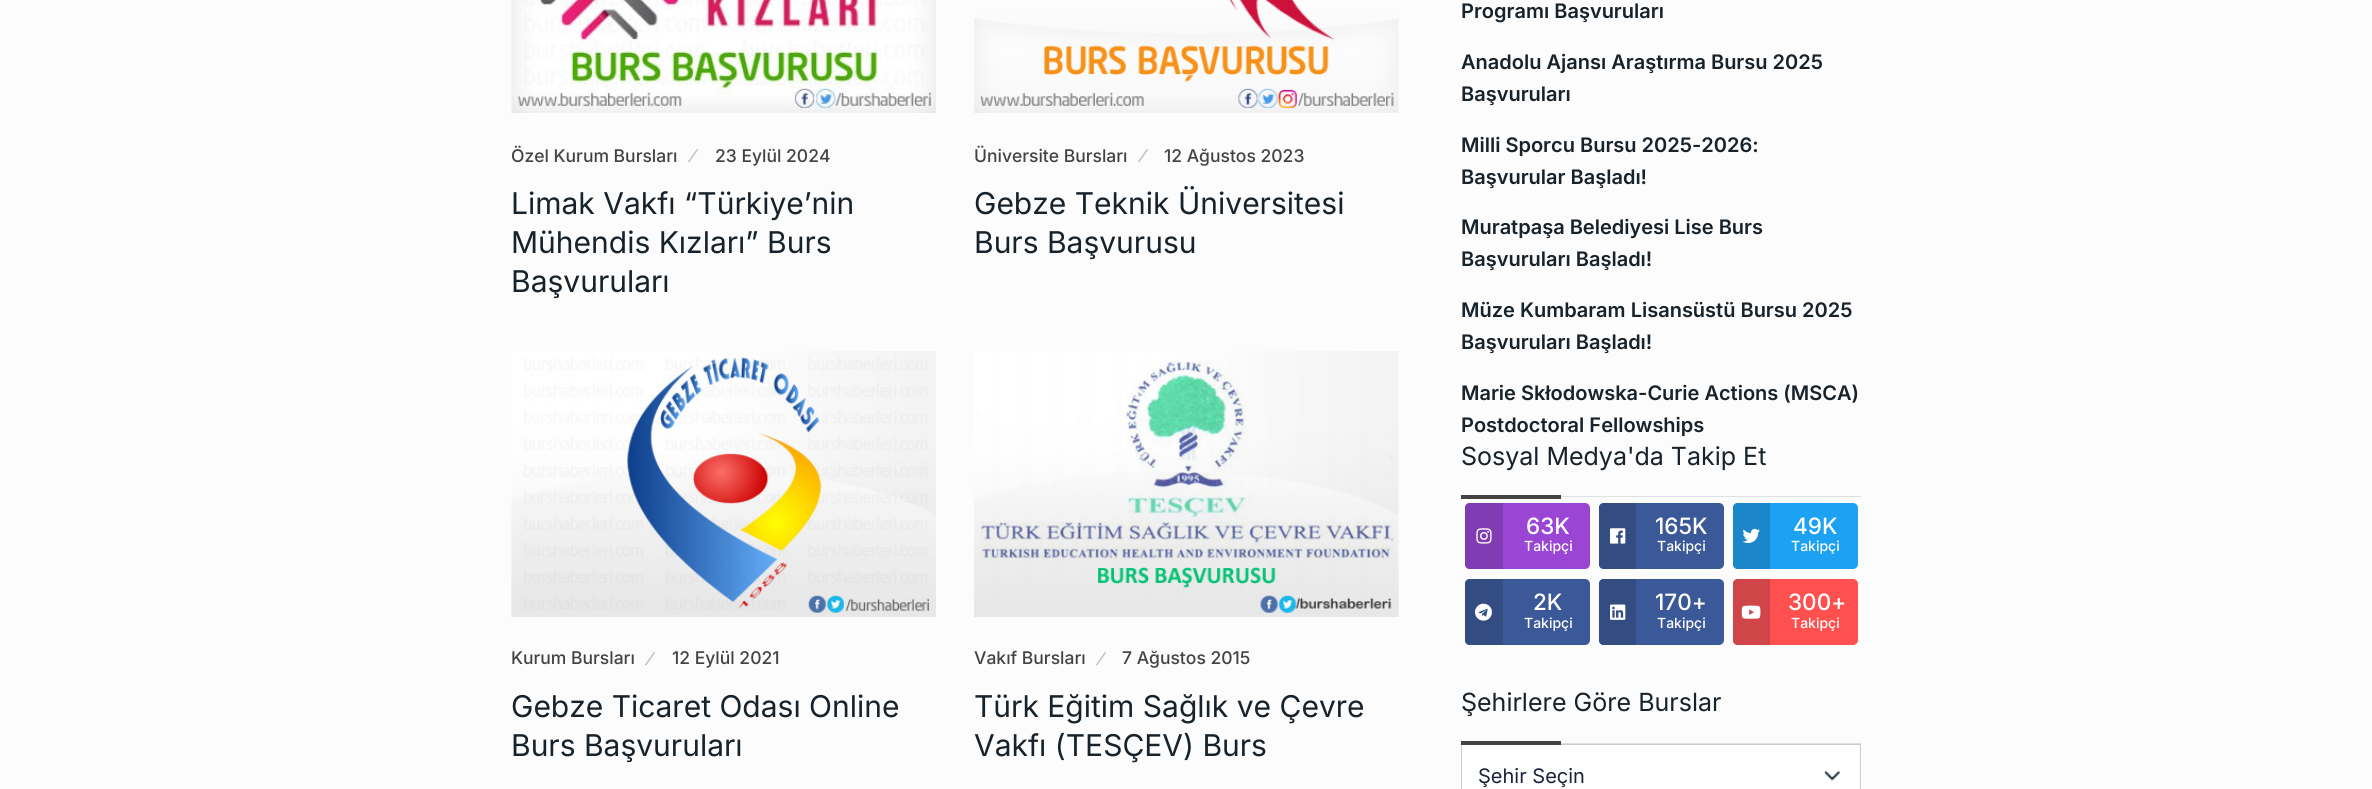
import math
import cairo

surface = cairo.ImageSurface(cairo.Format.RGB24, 2372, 789)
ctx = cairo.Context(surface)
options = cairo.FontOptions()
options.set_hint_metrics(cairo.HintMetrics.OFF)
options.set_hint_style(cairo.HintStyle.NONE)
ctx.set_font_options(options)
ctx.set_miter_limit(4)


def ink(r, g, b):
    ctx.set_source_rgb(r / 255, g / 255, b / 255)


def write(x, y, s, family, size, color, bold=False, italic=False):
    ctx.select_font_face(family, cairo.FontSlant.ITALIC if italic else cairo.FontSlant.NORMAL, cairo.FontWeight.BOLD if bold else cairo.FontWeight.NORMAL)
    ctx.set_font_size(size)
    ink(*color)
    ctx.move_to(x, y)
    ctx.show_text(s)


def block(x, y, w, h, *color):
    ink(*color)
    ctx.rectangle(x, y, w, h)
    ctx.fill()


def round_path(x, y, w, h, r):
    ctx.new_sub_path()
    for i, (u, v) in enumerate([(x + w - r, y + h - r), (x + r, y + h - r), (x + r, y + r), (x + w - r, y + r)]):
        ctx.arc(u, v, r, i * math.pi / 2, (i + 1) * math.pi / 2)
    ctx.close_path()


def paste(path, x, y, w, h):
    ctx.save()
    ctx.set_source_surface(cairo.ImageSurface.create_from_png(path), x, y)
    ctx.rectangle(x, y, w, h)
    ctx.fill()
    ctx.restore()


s1 = dict(family="Inter Medium", size=17.5, color=(67, 67, 67))
s2 = dict(family="Inter Medium", size=17.5, color=(197, 197, 197))
s3 = dict(family="Inter", size=30, color=(23, 34, 43))
s4 = dict(family="Inter SemiBold", size=20, color=(23, 34, 43))
s5 = dict(family="Inter", size=25, color=(23, 34, 43))
s6 = dict(family="Inter Medium", size=22.5, color=(255, 255, 255))
s7 = dict(family="Inter Medium", size=14, color=(255, 255, 255))
s8 = dict(family="Inter", size=20, color=(28, 34, 58))

ink(252, 252, 252)
ctx.paint()
paste("pic1.png", 511, 0, 425, 113)
write(511, 162, "Özel Kurum Bursları", **s1)
ctx.save()
ctx.translate(688, 160)
ctx.rotate(20 * math.pi / 180)
write(0, 0, "/", **s2)
ctx.restore()
write(715, 162, "23 Eylül 2024", **s1)
write(511, 214, "Limak Vakfı “Türkiye’nin", **s3)
write(511, 253, "Mühendis Kızları” Burs", **s3)
write(511, 292, "Başvuruları", **s3)
paste("pic2.png", 974, 0, 425, 113)
write(974, 162, "Üniversite Bursları", **s1)
ctx.save()
ctx.translate(1138, 160)
ctx.rotate(20 * math.pi / 180)
write(0, 0, "/", **s2)
ctx.restore()
write(1164, 162, "12 Ağustos 2023", **s1)
write(974, 214, "Gebze Teknik Üniversitesi", **s3)
write(974, 253, "Burs Başvurusu", **s3)
paste("pic3.png", 511, 351, 425, 266)
write(511, 664, "Kurum Bursları", **s1)
ctx.save()
ctx.translate(645, 663)
ctx.rotate(20 * math.pi / 180)
write(0, 0, "/", **s2)
ctx.restore()
write(672, 664, "12 Eylül 2021", **s1)
write(511, 717, "Gebze Ticaret Odası Online", **s3)
write(511, 756, "Burs Başvuruları", **s3)
paste("pic4.png", 974, 351, 425, 266)
write(974, 664, "Vakıf Bursları", **s1)
ctx.save()
ctx.translate(1096, 663)
ctx.rotate(20 * math.pi / 180)
write(0, 0, "/", **s2)
ctx.restore()
write(1122, 664, "7 Ağustos 2015", **s1)
write(974, 717, "Türk Eğitim Sağlık ve Çevre", **s3)
write(974, 756, "Vakfı (TESÇEV) Burs", **s3)
write(1461, 18, "Programı Başvuruları", **s4)
write(1461, 69, "Anadolu Ajansı Araştırma Bursu 2025", **s4)
write(1461, 101, "Başvuruları", **s4)
write(1461, 152, "Milli Sporcu Bursu 2025-2026:", **s4)
write(1461, 184, "Başvurular Başladı!", **s4)
write(1461, 234, "Muratpaşa Belediyesi Lise Burs", **s4)
write(1461, 266, "Başvuruları Başladı!", **s4)
write(1461, 317, "Müze Kumbaram Lisansüstü Bursu 2025", **s4)
write(1461, 349, "Başvuruları Başladı!", **s4)
write(1461, 400, "Marie Skłodowska-Curie Actions (MSCA)", **s4)
write(1461, 432, "Postdoctoral Fellowships", **s4)
block(1561, 496, 300, 1, 222, 226, 230)
write(1461, 465, "Sosyal Medya'da Takip Et", **s5)
block(1461, 495, 100, 4, 67, 67, 67)
ink(155, 69, 213)
round_path(1465, 503, 125, 66, 5)
ctx.fill()
ink(128, 61, 179)
ctx.new_path()
ctx.move_to(1470, 503)
ctx.line_to(1503, 503)
ctx.line_to(1503, 569)
ctx.line_to(1470, 569)
ctx.curve_to(1467, 569, 1465, 567, 1465, 564)
ctx.line_to(1465, 508)
ctx.curve_to(1465, 505, 1467, 503, 1470, 503)
ctx.close_path()
ctx.fill()
paste("pic5.png", 1476, 528, 16, 16)
write(1526, 534, "63K", **s6)
write(1524, 551, "Takipçi", **s7)
ink(59, 89, 152)
round_path(1599, 503, 125, 66, 5)
ctx.fill()
ink(51, 77, 130)
ctx.new_path()
ctx.move_to(1604, 503)
ctx.line_to(1636, 503)
ctx.line_to(1636, 569)
ctx.line_to(1604, 569)
ctx.curve_to(1601, 569, 1599, 567, 1599, 564)
ctx.line_to(1599, 508)
ctx.curve_to(1599, 505, 1601, 503, 1604, 503)
ctx.close_path()
ctx.fill()
paste("pic6.png", 1610, 528, 16, 16)
write(1655, 534, "165K", **s6)
write(1657, 551, "Takipçi", **s7)
ink(29, 161, 242)
round_path(1733, 503, 125, 66, 5)
ctx.fill()
ink(27, 135, 202)
ctx.new_path()
ctx.move_to(1738, 503)
ctx.line_to(1770, 503)
ctx.line_to(1770, 569)
ctx.line_to(1738, 569)
ctx.curve_to(1735, 569, 1733, 567, 1733, 564)
ctx.line_to(1733, 508)
ctx.curve_to(1733, 505, 1735, 503, 1738, 503)
ctx.close_path()
ctx.fill()
paste("pic7.png", 1742, 528, 18, 15)
write(1793, 534, "49K", **s6)
write(1791, 551, "Takipçi", **s7)
ink(59, 89, 152)
round_path(1465, 579, 125, 66, 5)
ctx.fill()
ink(51, 77, 130)
ctx.new_path()
ctx.move_to(1470, 579)
ctx.line_to(1503, 579)
ctx.line_to(1503, 645)
ctx.line_to(1470, 645)
ctx.curve_to(1467, 645, 1465, 643, 1465, 640)
ctx.line_to(1465, 584)
ctx.curve_to(1465, 581, 1467, 579, 1470, 579)
ctx.close_path()
ctx.fill()
paste("pic8.png", 1475, 603, 17, 18)
write(1533, 610, "2K", **s6)
write(1524, 628, "Takipçi", **s7)
ink(59, 89, 152)
round_path(1599, 579, 125, 66, 5)
ctx.fill()
ink(51, 77, 130)
ctx.new_path()
ctx.move_to(1604, 579)
ctx.line_to(1636, 579)
ctx.line_to(1636, 645)
ctx.line_to(1604, 645)
ctx.curve_to(1601, 645, 1599, 643, 1599, 640)
ctx.line_to(1599, 584)
ctx.curve_to(1599, 581, 1601, 579, 1604, 579)
ctx.close_path()
ctx.fill()
paste("pic9.png", 1610, 604, 16, 16)
write(1655, 610, "170+", **s6)
write(1657, 628, "Takipçi", **s7)
ink(255, 80, 80)
round_path(1733, 579, 125, 66, 5)
ctx.fill()
ink(208, 70, 72)
ctx.new_path()
ctx.move_to(1738, 579)
ctx.line_to(1770, 579)
ctx.line_to(1770, 645)
ctx.line_to(1738, 645)
ctx.curve_to(1735, 645, 1733, 643, 1733, 640)
ctx.line_to(1733, 584)
ctx.curve_to(1733, 581, 1735, 579, 1738, 579)
ctx.close_path()
ctx.fill()
paste("pic10.png", 1741, 605, 20, 14)
write(1788, 610, "300+", **s6)
write(1791, 628, "Takipçi", **s7)
block(1561, 743, 300, 1, 222, 226, 230)
write(1461, 711, "Şehirlere Göre Burslar", **s5)
block(1462, 745, 398, 44, 255, 255, 255)
paste("pic11.png", 1823, 770, 17, 11)
ctx.rectangle(1461.5, 744.5, 399, 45)
ink(204, 204, 204)
ctx.set_line_width(1)
ctx.stroke()
block(1461, 741, 100, 4, 67, 67, 67)
write(1478, 783, "Şehir Seçin", **s8)
surface.write_to_png("screenshot.png")
